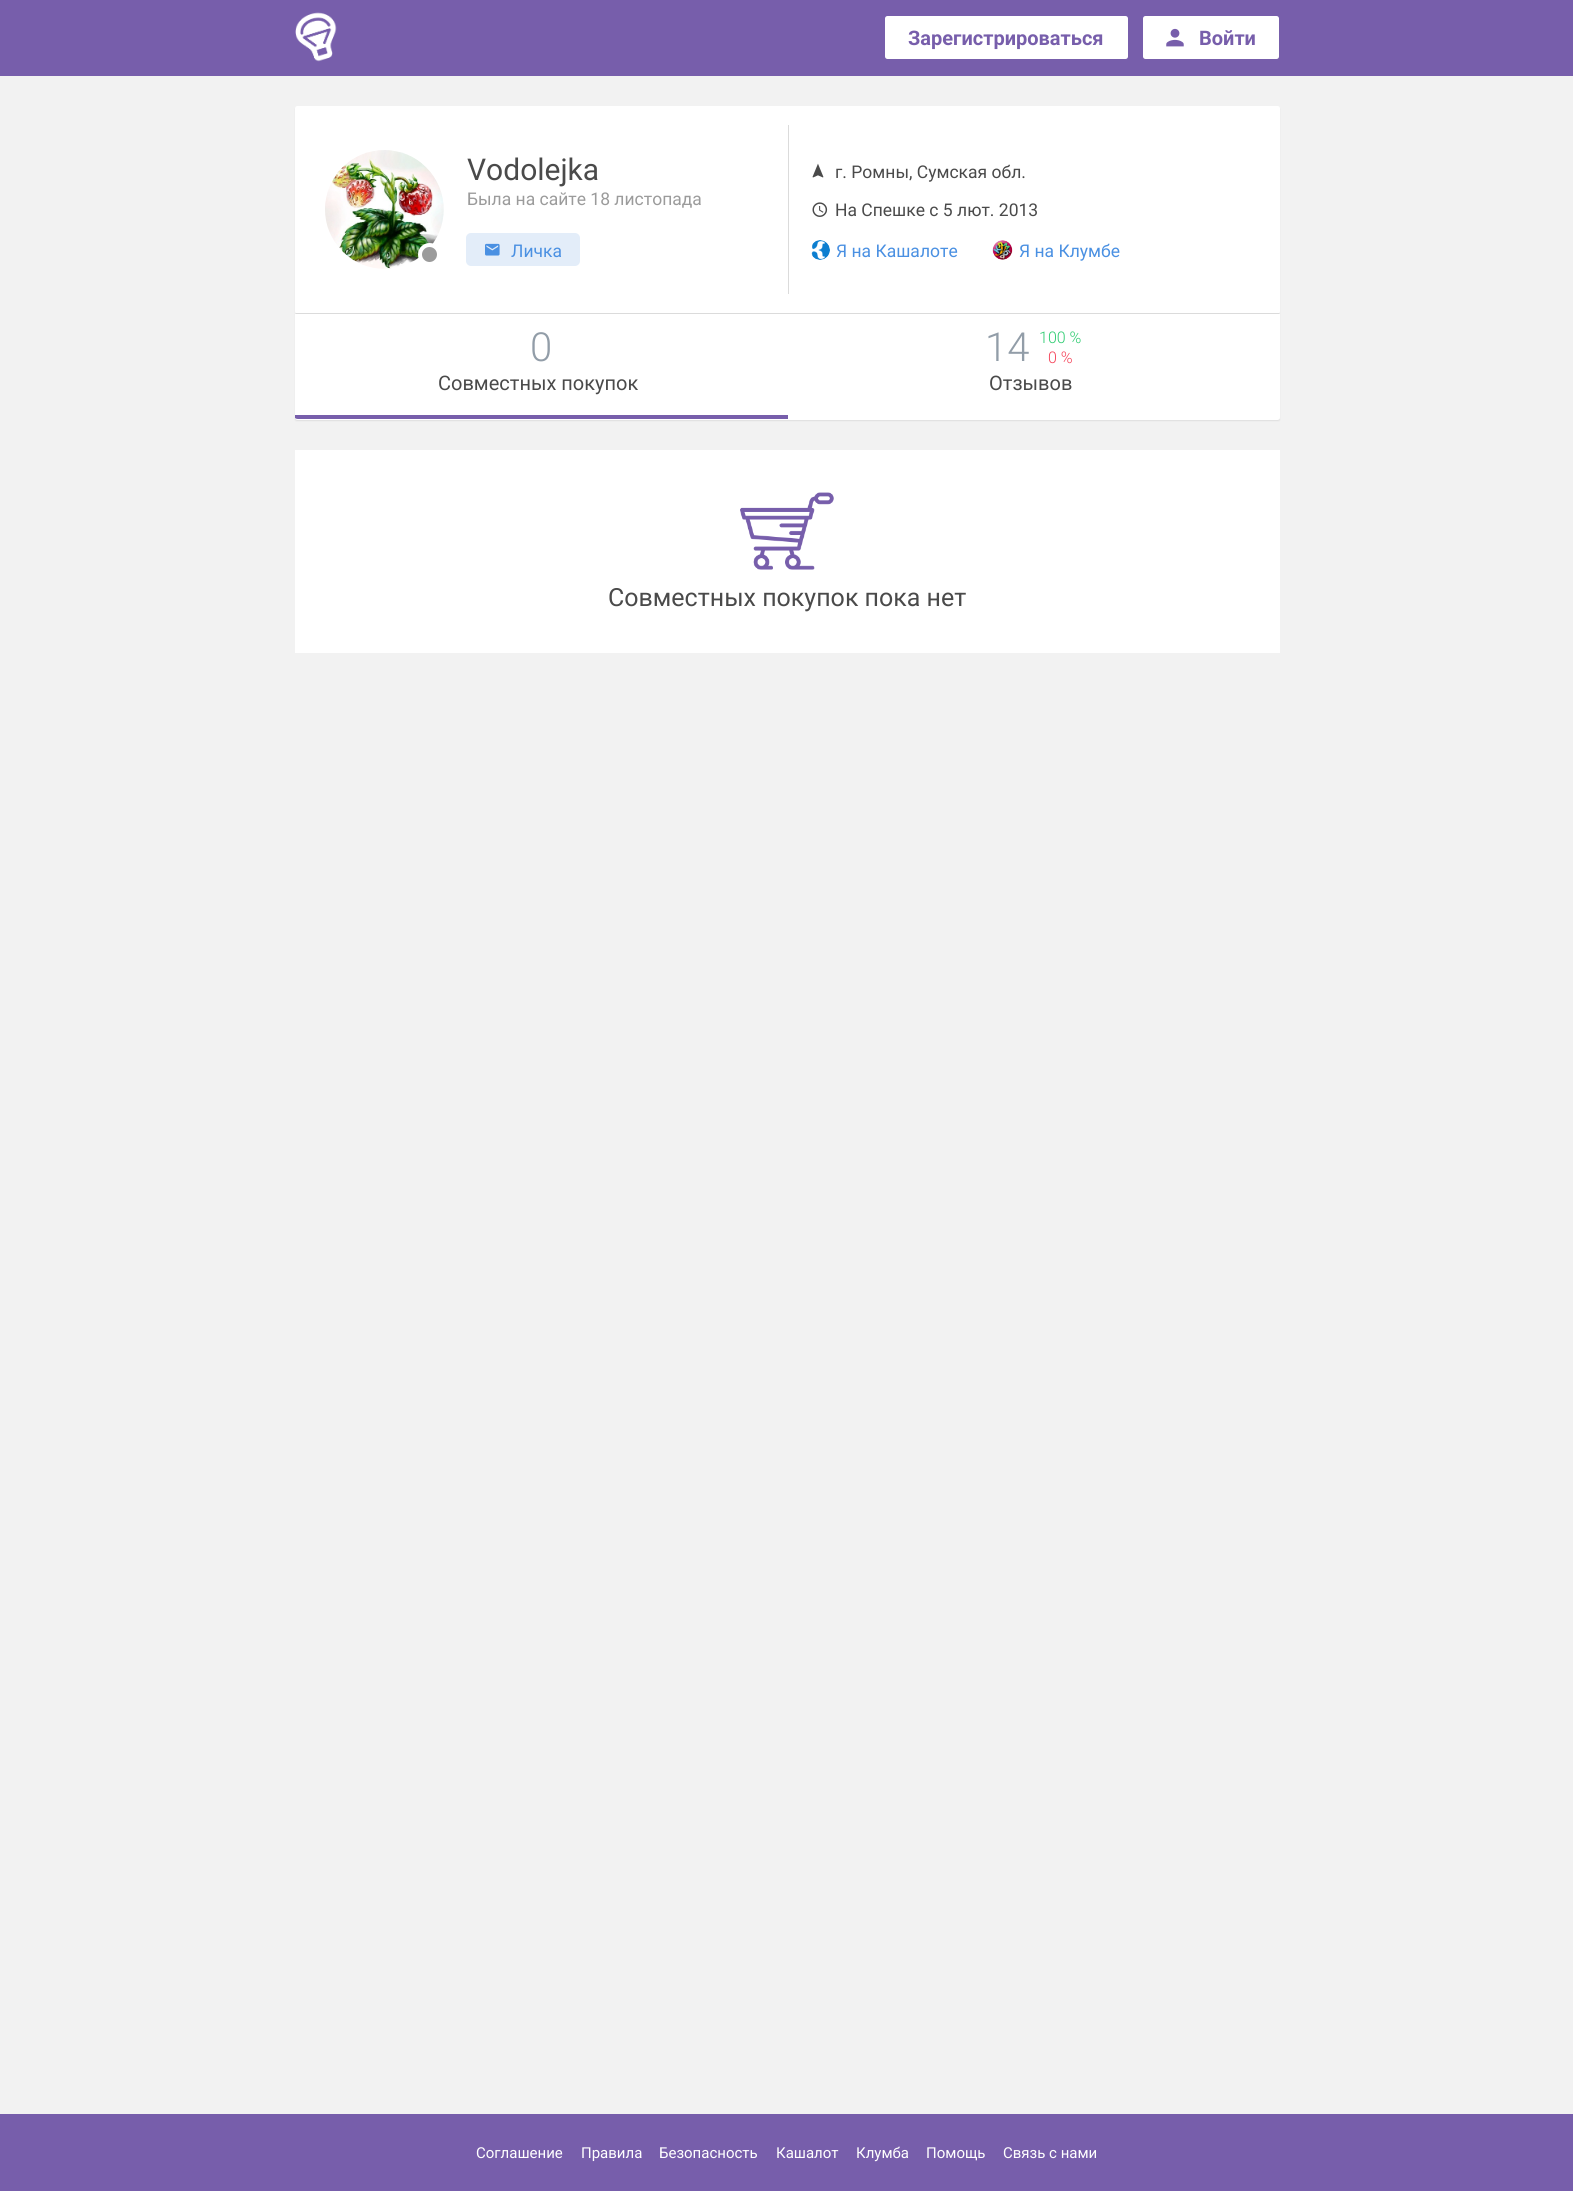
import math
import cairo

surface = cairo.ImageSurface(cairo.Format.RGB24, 1573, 2191)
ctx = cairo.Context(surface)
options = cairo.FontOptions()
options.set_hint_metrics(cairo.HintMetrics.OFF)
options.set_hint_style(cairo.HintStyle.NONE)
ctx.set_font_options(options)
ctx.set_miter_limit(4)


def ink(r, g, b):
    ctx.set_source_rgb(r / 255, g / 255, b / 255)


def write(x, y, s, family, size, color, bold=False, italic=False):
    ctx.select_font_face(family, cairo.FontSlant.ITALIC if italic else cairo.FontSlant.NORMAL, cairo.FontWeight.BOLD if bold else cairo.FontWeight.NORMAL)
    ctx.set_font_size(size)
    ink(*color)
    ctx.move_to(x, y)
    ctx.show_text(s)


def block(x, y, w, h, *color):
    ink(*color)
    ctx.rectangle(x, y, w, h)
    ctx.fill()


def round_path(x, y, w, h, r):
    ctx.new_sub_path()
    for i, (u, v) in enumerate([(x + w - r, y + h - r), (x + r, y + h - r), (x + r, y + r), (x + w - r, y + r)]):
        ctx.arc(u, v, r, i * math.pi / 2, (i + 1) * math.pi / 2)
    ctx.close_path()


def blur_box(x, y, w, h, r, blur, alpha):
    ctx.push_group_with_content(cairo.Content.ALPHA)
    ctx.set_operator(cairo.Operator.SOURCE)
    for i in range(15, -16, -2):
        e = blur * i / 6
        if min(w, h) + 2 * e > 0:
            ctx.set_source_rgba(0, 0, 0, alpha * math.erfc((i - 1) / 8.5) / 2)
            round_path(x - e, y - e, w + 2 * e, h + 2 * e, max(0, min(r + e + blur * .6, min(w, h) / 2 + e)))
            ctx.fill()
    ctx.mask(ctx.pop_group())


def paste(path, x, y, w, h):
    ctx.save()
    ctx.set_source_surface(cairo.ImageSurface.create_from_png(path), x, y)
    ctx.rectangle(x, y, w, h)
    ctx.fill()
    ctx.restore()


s1 = dict(family="Roboto", size=20, color=(119, 94, 171), bold=True)
s2 = dict(family="Roboto", size=30, color=(74, 74, 74))
s3 = dict(family="Roboto", size=17.5, color=(155, 155, 155))
s4 = dict(family="Roboto", size=17.5, color=(74, 144, 226))
s5 = dict(family="Roboto", size=17.5, color=(74, 74, 74))
s6 = dict(family="Roboto Light", size=40, color=(146, 157, 168))
s7 = dict(family="Roboto", size=20, color=(74, 74, 74))
s8 = dict(family="Roboto Light", size=16, color=(46, 204, 113))
s9 = dict(family="Roboto Light", size=16, color=(244, 67, 89))
s10 = dict(family="Roboto", size=25, color=(74, 74, 74))
s11 = dict(family="Roboto", size=15, color=(255, 255, 255))

ink(242, 242, 242)
ctx.paint()
block(0, 0, 1573, 76, 119, 94, 171)
paste("pic1.png", 295, 12, 42, 50)
ink(255, 255, 255)
round_path(885, 16, 243, 43, 2.5)
ctx.fill()
write(908, 45, "Зарегистрироваться", **s1)
ink(255, 255, 255)
round_path(1143, 16, 136, 43, 2.5)
ctx.fill()
paste("pic2.png", 1166, 28, 18, 19)
write(1199, 45, "Войти", **s1)
ink(17, 17, 17)
blur_box(296, 109, 983, 311, 0, 1, 0.2)
ink(255, 255, 255)
round_path(295, 106, 985, 208, 2.5)
ctx.fill()
block(296, 313, 983, 1, 219, 219, 219)
paste("pic3.png", 325, 150, 119, 119)
ink(155, 155, 155)
ctx.arc(429.5, 254.5, 9.5, 0, 2 * math.pi)
ctx.fill_preserve()
ink(255, 255, 255)
ctx.set_line_width(4)
ctx.stroke()
write(467, 180, "Vodolejka", **s2)
write(467, 205, "Была на сайте 18 листопада", **s3)
ink(227, 237, 249)
round_path(466, 233, 114, 33, 5)
ctx.fill()
paste("pic4.png", 485, 243, 15, 13)
write(511, 257, "Личка", **s4)
block(788, 125, 1, 169, 219, 219, 219)
paste("pic5.png", 812, 163, 12, 15)
write(835, 178, "г. Ромны, Сумская обл.", **s5)
paste("pic6.png", 812, 202, 16, 15)
write(835, 216, "На Спешке с 5 лют. 2013", **s5)
paste("pic7.png", 811, 240, 19, 20)
write(836, 257, "Я на Кашалоте", **s4)
paste("pic8.png", 992, 240, 21, 20)
write(1019, 257, "Я на Клумбе", **s4)
ink(255, 255, 255)
ctx.new_path()
ctx.move_to(295, 314)
ctx.line_to(1280, 314)
ctx.line_to(1280, 417.5)
ctx.curve_to(1280, 419, 1279, 420, 1277.5, 420)
ctx.line_to(297.5, 420)
ctx.curve_to(296, 420, 295, 419, 295, 417.5)
ctx.close_path()
ctx.fill()
ink(119, 94, 171)
ctx.new_path()
ctx.move_to(295, 415)
ctx.line_to(295, 418)
ctx.curve_to(295, 418, 296, 419, 298, 419)
ctx.line_to(788, 419)
ctx.line_to(788, 415)
ctx.close_path()
ctx.fill()
write(530, 361, "0", **s6)
write(438, 390, "Совместных покупок", **s7)
write(985, 361, "14", **s6)
write(1039, 343, "100 %", **s8)
write(1048, 363, "0 %", **s9)
write(989, 390, "Отзывов", **s7)
block(295, 450, 985, 203, 255, 255, 255)
paste("pic9.png", 740, 492, 94, 78)
write(608, 606, "Совместных покупок пока нет", **s10)
block(0, 2114, 1573, 77, 119, 94, 171)
write(476, 2158, "Соглашение", **s11)
write(581, 2158, "Правила", **s11)
write(659, 2158, "Безопасность", **s11)
write(776, 2158, "Кашалот", **s11)
write(856, 2158, "Клумба", **s11)
write(926, 2158, "Помощь", **s11)
write(1003, 2158, "Связь с нами", **s11)
surface.write_to_png("screenshot.png")
